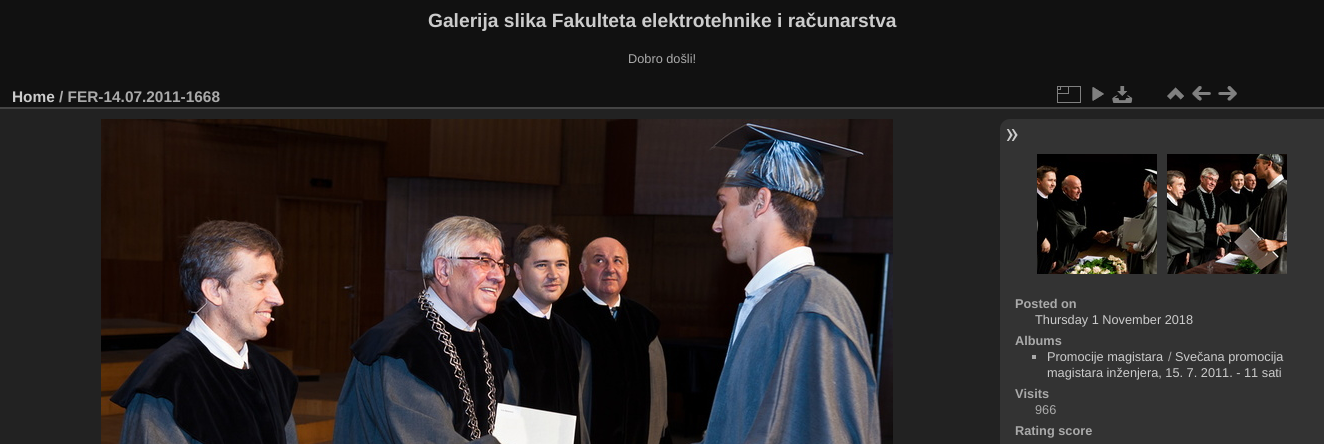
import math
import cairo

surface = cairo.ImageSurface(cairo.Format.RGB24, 1324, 444)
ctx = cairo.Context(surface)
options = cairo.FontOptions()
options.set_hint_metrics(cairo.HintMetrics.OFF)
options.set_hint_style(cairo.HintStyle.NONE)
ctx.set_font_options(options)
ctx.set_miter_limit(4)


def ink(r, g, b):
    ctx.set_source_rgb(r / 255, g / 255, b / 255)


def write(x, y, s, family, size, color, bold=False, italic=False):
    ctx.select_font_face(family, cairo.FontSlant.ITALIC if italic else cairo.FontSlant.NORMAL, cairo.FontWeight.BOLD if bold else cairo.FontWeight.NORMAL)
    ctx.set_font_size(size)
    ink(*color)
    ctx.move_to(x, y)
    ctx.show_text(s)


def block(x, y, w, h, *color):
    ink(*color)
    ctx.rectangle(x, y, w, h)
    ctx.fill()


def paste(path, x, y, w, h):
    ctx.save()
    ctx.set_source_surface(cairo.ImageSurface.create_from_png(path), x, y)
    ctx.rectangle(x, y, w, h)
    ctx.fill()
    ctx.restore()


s1 = dict(family="Liberation Sans", size=19.2, color=(204, 204, 204), bold=True)
s2 = dict(family="Liberation Sans", size=12.75, color=(170, 170, 170))
s3 = dict(family="Liberation Sans", size=15.4, color=(204, 204, 204), bold=True)
s4 = dict(family="Liberation Sans", size=15.4, color=(170, 170, 170), bold=True)
s5 = dict(family="Liberation Sans", size=12.75, color=(170, 170, 170), bold=True)
s6 = dict(family="Liberation Sans", size=12.75, color=(204, 204, 204))

ink(17, 17, 17)
ctx.paint()
write(428, 27, "Galerija slika Fakulteta elektrotehnike i računarstva", **s1)
write(628, 63, "Dobro došli!", **s2)
block(0, 109, 1324, 335, 34, 34, 34)
block(0, 107, 1324, 2, 68, 68, 68)
write(12, 102, "Home", **s3)
write(59, 102, "/ FER-14.07.2011-1668", **s4)
paste("pic1.png", 1057, 86, 24, 17)
paste("pic2.png", 1092, 87, 12, 14)
paste("pic3.png", 1112, 86, 21, 17)
paste("pic4.png", 1167, 87, 17, 13)
paste("pic5.png", 1192, 86, 19, 15)
paste("pic6.png", 1218, 86, 19, 15)
paste("pic7.png", 101, 119, 792, 325)
ink(51, 51, 51)
ctx.new_path()
ctx.move_to(1010, 119)
ctx.line_to(1324, 119)
ctx.line_to(1324, 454)
ctx.line_to(1010, 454)
ctx.curve_to(1004.5, 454, 1000, 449.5, 1000, 444)
ctx.line_to(1000, 129)
ctx.curve_to(1000, 123.5, 1004.5, 119, 1010, 119)
ctx.close_path()
ctx.fill()
paste("pic8.png", 1006, 129, 12, 12)
paste("pic9.png", 1037, 154, 120, 120)
paste("pic10.png", 1167, 154, 120, 120)
write(1015, 308, "Posted on", **s5)
write(1035, 324, "Thursday 1 November 2018", **s6)
write(1015, 345, "Albums", **s5)
block(1032, 355, 4, 4, 170, 170, 170)
write(1047, 361, "Promocije magistara", **s6)
write(1168, 361, "/", **s2)
write(1175, 361, "Svečana promocija", **s6)
write(1047, 377, "magistara inženjera, 15. 7. 2011. - 11 sati", **s6)
write(1015, 398, "Visits", **s5)
write(1035, 414, "966", **s2)
write(1015, 435, "Rating score", **s5)
surface.write_to_png("screenshot.png")
